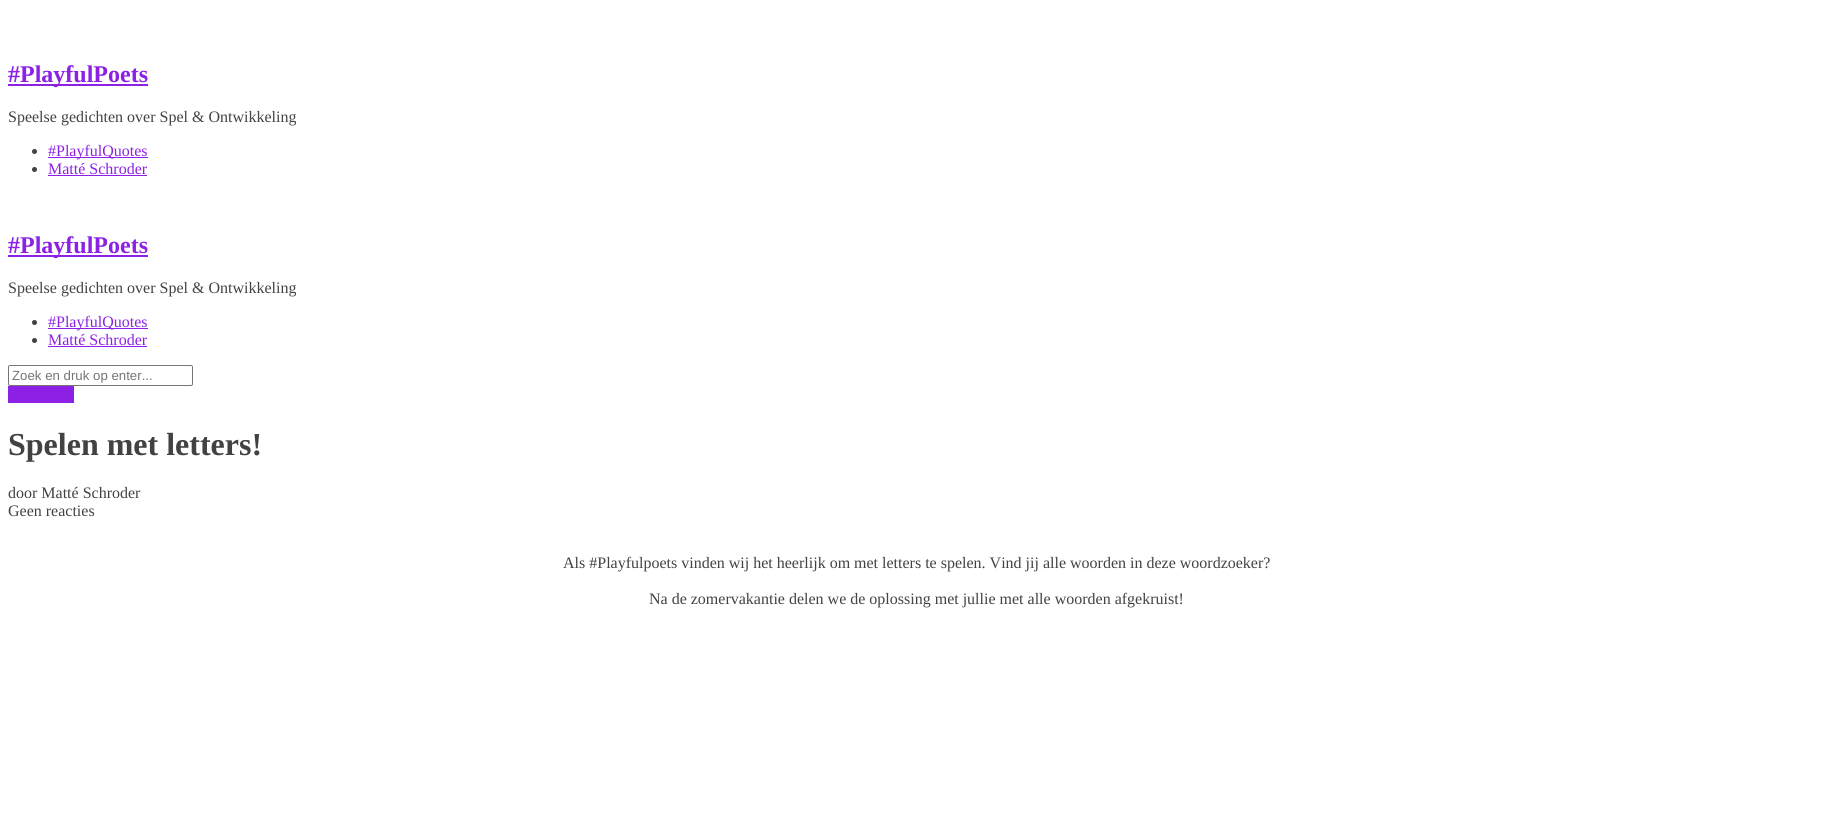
import math
import cairo

surface = cairo.ImageSurface(cairo.Format.RGB24, 1833, 815)
ctx = cairo.Context(surface)
options = cairo.FontOptions()
options.set_hint_metrics(cairo.HintMetrics.OFF)
options.set_hint_style(cairo.HintStyle.NONE)
ctx.set_font_options(options)
ctx.set_miter_limit(4)


def ink(r, g, b):
    ctx.set_source_rgb(r / 255, g / 255, b / 255)


def write(x, y, s, family, size, color, bold=False, italic=False):
    ctx.select_font_face(family, cairo.FontSlant.ITALIC if italic else cairo.FontSlant.NORMAL, cairo.FontWeight.BOLD if bold else cairo.FontWeight.NORMAL)
    ctx.set_font_size(size)
    ink(*color)
    ctx.move_to(x, y)
    ctx.show_text(s)


def block(x, y, w, h, *color):
    ink(*color)
    ctx.rectangle(x, y, w, h)
    ctx.fill()


def round_path(x, y, w, h, r):
    ctx.new_sub_path()
    for i, (u, v) in enumerate([(x + w - r, y + h - r), (x + r, y + h - r), (x + r, y + r), (x + w - r, y + r)]):
        ctx.arc(u, v, r, i * math.pi / 2, (i + 1) * math.pi / 2)
    ctx.close_path()


s1 = dict(family="Liberation Serif", size=24, color=(140, 32, 229), bold=True)
s2 = dict(family="Liberation Serif", size=16, color=(66, 66, 66))
s3 = dict(family="Liberation Serif", size=16, color=(140, 32, 229))
s4 = dict(family="Liberation Sans", size=13.25, color=(117, 117, 117))
s5 = dict(family="Liberation Serif", size=32, color=(66, 66, 66), bold=True)

ink(255, 255, 255)
ctx.paint()
block(8, 84, 140, 2, 140, 32, 229)
write(8, 82, "#PlayfulPoets", **s1)
write(8, 122, "Speelse gedichten over Spel & Ontwikkeling", **s2)
ctx.new_path()
ctx.arc(34.5, 151.5, 2.5, 0, 2 * math.pi)
ctx.fill()
block(48, 157, 100, 1, 140, 32, 229)
write(48, 156, "#PlayfulQuotes", **s3)
ink(66, 66, 66)
ctx.new_path()
ctx.arc(34.5, 169.5, 2.5, 0, 2 * math.pi)
ctx.fill()
write(48, 174, "Matté Schroder", **s3)
block(48, 175, 99, 1, 140, 32, 229)
block(8, 255, 140, 2, 140, 32, 229)
write(8, 253, "#PlayfulPoets", **s1)
write(8, 293, "Speelse gedichten over Spel & Ontwikkeling", **s2)
ctx.new_path()
ctx.arc(34.5, 322.5, 2.5, 0, 2 * math.pi)
ctx.fill()
block(48, 328, 100, 1, 140, 32, 229)
write(48, 327, "#PlayfulQuotes", **s3)
ink(66, 66, 66)
ctx.new_path()
ctx.arc(34.5, 340.5, 2.5, 0, 2 * math.pi)
ctx.fill()
write(48, 345, "Matté Schroder", **s3)
block(48, 346, 99, 1, 140, 32, 229)
round_path(8.5, 365.5, 184, 20, 1.5)
ink(118, 118, 118)
ctx.set_line_width(1)
ctx.stroke()
write(12, 380, "Zoek en druk op enter...", **s4)
block(8, 386, 66, 17, 140, 32, 229)
write(8, 455, "Spelen met letters!", **s5)
write(8, 498, "door Matté Schroder", **s2)
write(8, 516, "Geen reacties", **s2)
write(563, 568, "Als #Playfulpoets vinden wij het heerlijk om met letters te spelen. Vind jij alle woorden in deze woordzoeker?", **s2)
write(649, 604, "Na de zomervakantie delen we de oplossing met jullie met alle woorden afgekruist!", **s2)
surface.write_to_png("screenshot.png")
